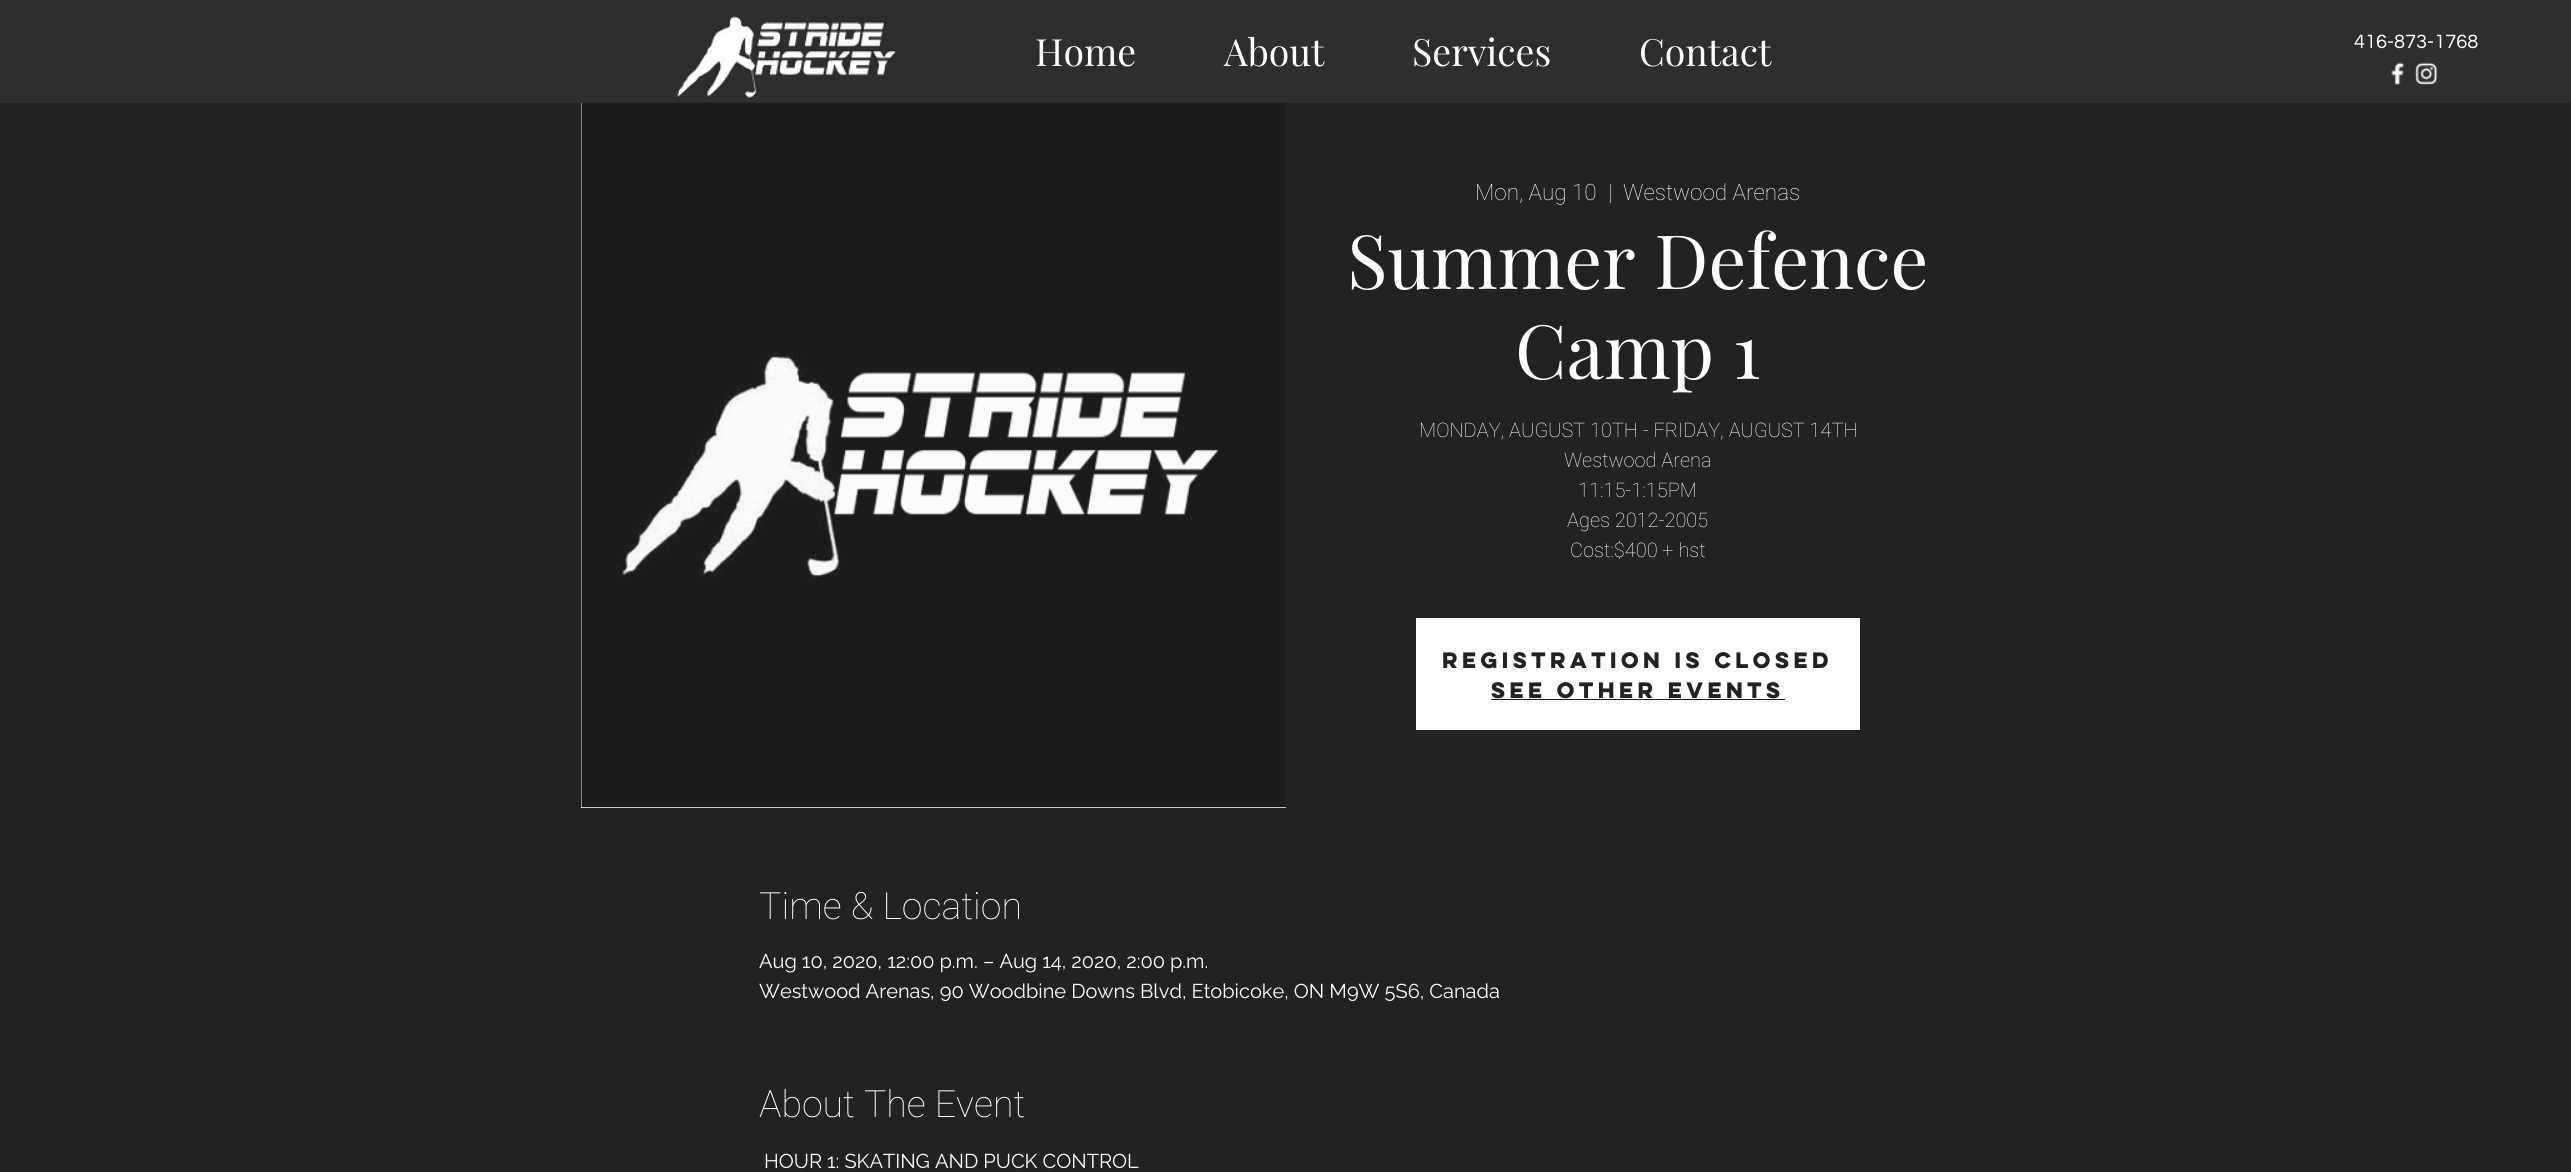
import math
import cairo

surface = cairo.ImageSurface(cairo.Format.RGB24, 2571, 1172)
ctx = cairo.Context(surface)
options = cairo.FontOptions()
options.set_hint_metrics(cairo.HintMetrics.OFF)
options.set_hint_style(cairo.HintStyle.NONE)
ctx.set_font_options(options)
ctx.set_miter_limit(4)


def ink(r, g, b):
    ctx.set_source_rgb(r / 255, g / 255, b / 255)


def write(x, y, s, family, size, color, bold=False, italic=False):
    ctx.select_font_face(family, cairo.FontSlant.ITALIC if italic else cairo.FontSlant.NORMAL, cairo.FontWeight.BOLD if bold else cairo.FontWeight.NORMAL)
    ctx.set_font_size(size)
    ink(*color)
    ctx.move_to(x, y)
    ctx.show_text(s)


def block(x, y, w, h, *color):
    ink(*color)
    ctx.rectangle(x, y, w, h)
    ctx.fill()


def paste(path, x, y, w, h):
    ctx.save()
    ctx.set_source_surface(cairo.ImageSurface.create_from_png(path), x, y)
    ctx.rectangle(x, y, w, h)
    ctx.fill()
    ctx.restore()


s1 = dict(family="Playfair Display", size=37.5, color=(255, 255, 255))
s2 = dict(family="Questrial", size=20, color=(255, 255, 255))
s3 = dict(family="Roboto Thin", size=22.5, color=(255, 255, 255))
s4 = dict(family="Playfair Display", size=75, color=(255, 255, 255))
s5 = dict(family="Roboto Thin", size=20, color=(255, 255, 255))
s6 = dict(family="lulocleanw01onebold", size=20, color=(34, 34, 34), bold=True)
s7 = dict(family="Roboto Thin", size=37.5, color=(255, 255, 255))
s8 = dict(family="Raleway", size=20, color=(255, 255, 255))

ink(47, 46, 46)
ctx.paint()
paste("pic1.png", 676, 16, 220, 83)
write(1035, 66, "Home", **s1)
write(1224, 66, "About", **s1)
write(1412, 66, "Services", **s1)
write(1639, 66, "Contact", **s1)
write(2354, 48, "416-873-1768", **s2)
paste("pic2.png", 2391, 62, 13, 24)
paste("pic3.png", 2415, 62, 23, 23)
block(0, 103, 2571, 1069, 34, 34, 34)
block(581, 103, 705, 705, 226, 226, 226)
paste("pic4.png", 581, 102, 705, 706)
write(1475, 200, "Mon, Aug 10", **s3)
write(1608, 200, "|", **s3)
write(1623, 200, "Westwood Arenas", **s3)
write(1347, 289, "Summer Defence", **s4)
write(1515, 379, "Camp 1", **s4)
write(1419, 437, "MONDAY, AUGUST 10TH - FRIDAY, AUGUST 14TH", **s5)
write(1564, 467, "Westwood Arena", **s5)
write(1578, 497, "11:15-1:15PM", **s5)
write(1567, 527, "Ages 2012-2005", **s5)
write(1570, 557, "Cost:$400 + hst", **s5)
block(1416, 618, 444, 112, 255, 255, 255)
write(1442, 668, "Registration is Closed", **s6)
write(1491, 698, "See other events", **s6)
block(1491, 699, 294, 1, 34, 34, 34)
write(759, 919, "Time & Location", **s7)
write(759, 968, "Aug 10, 2020, 12:00 p.m. – Aug 14, 2020, 2:00 p.m.", **s8)
write(759, 998, "Westwood Arenas, 90 Woodbine Downs Blvd, Etobicoke, ON M9W 5S6, Canada", **s8)
write(759, 1117, "About The Event", **s7)
write(764, 1168, "HOUR 1: SKATING AND PUCK CONTROL", **s8)
surface.write_to_png("screenshot.png")
